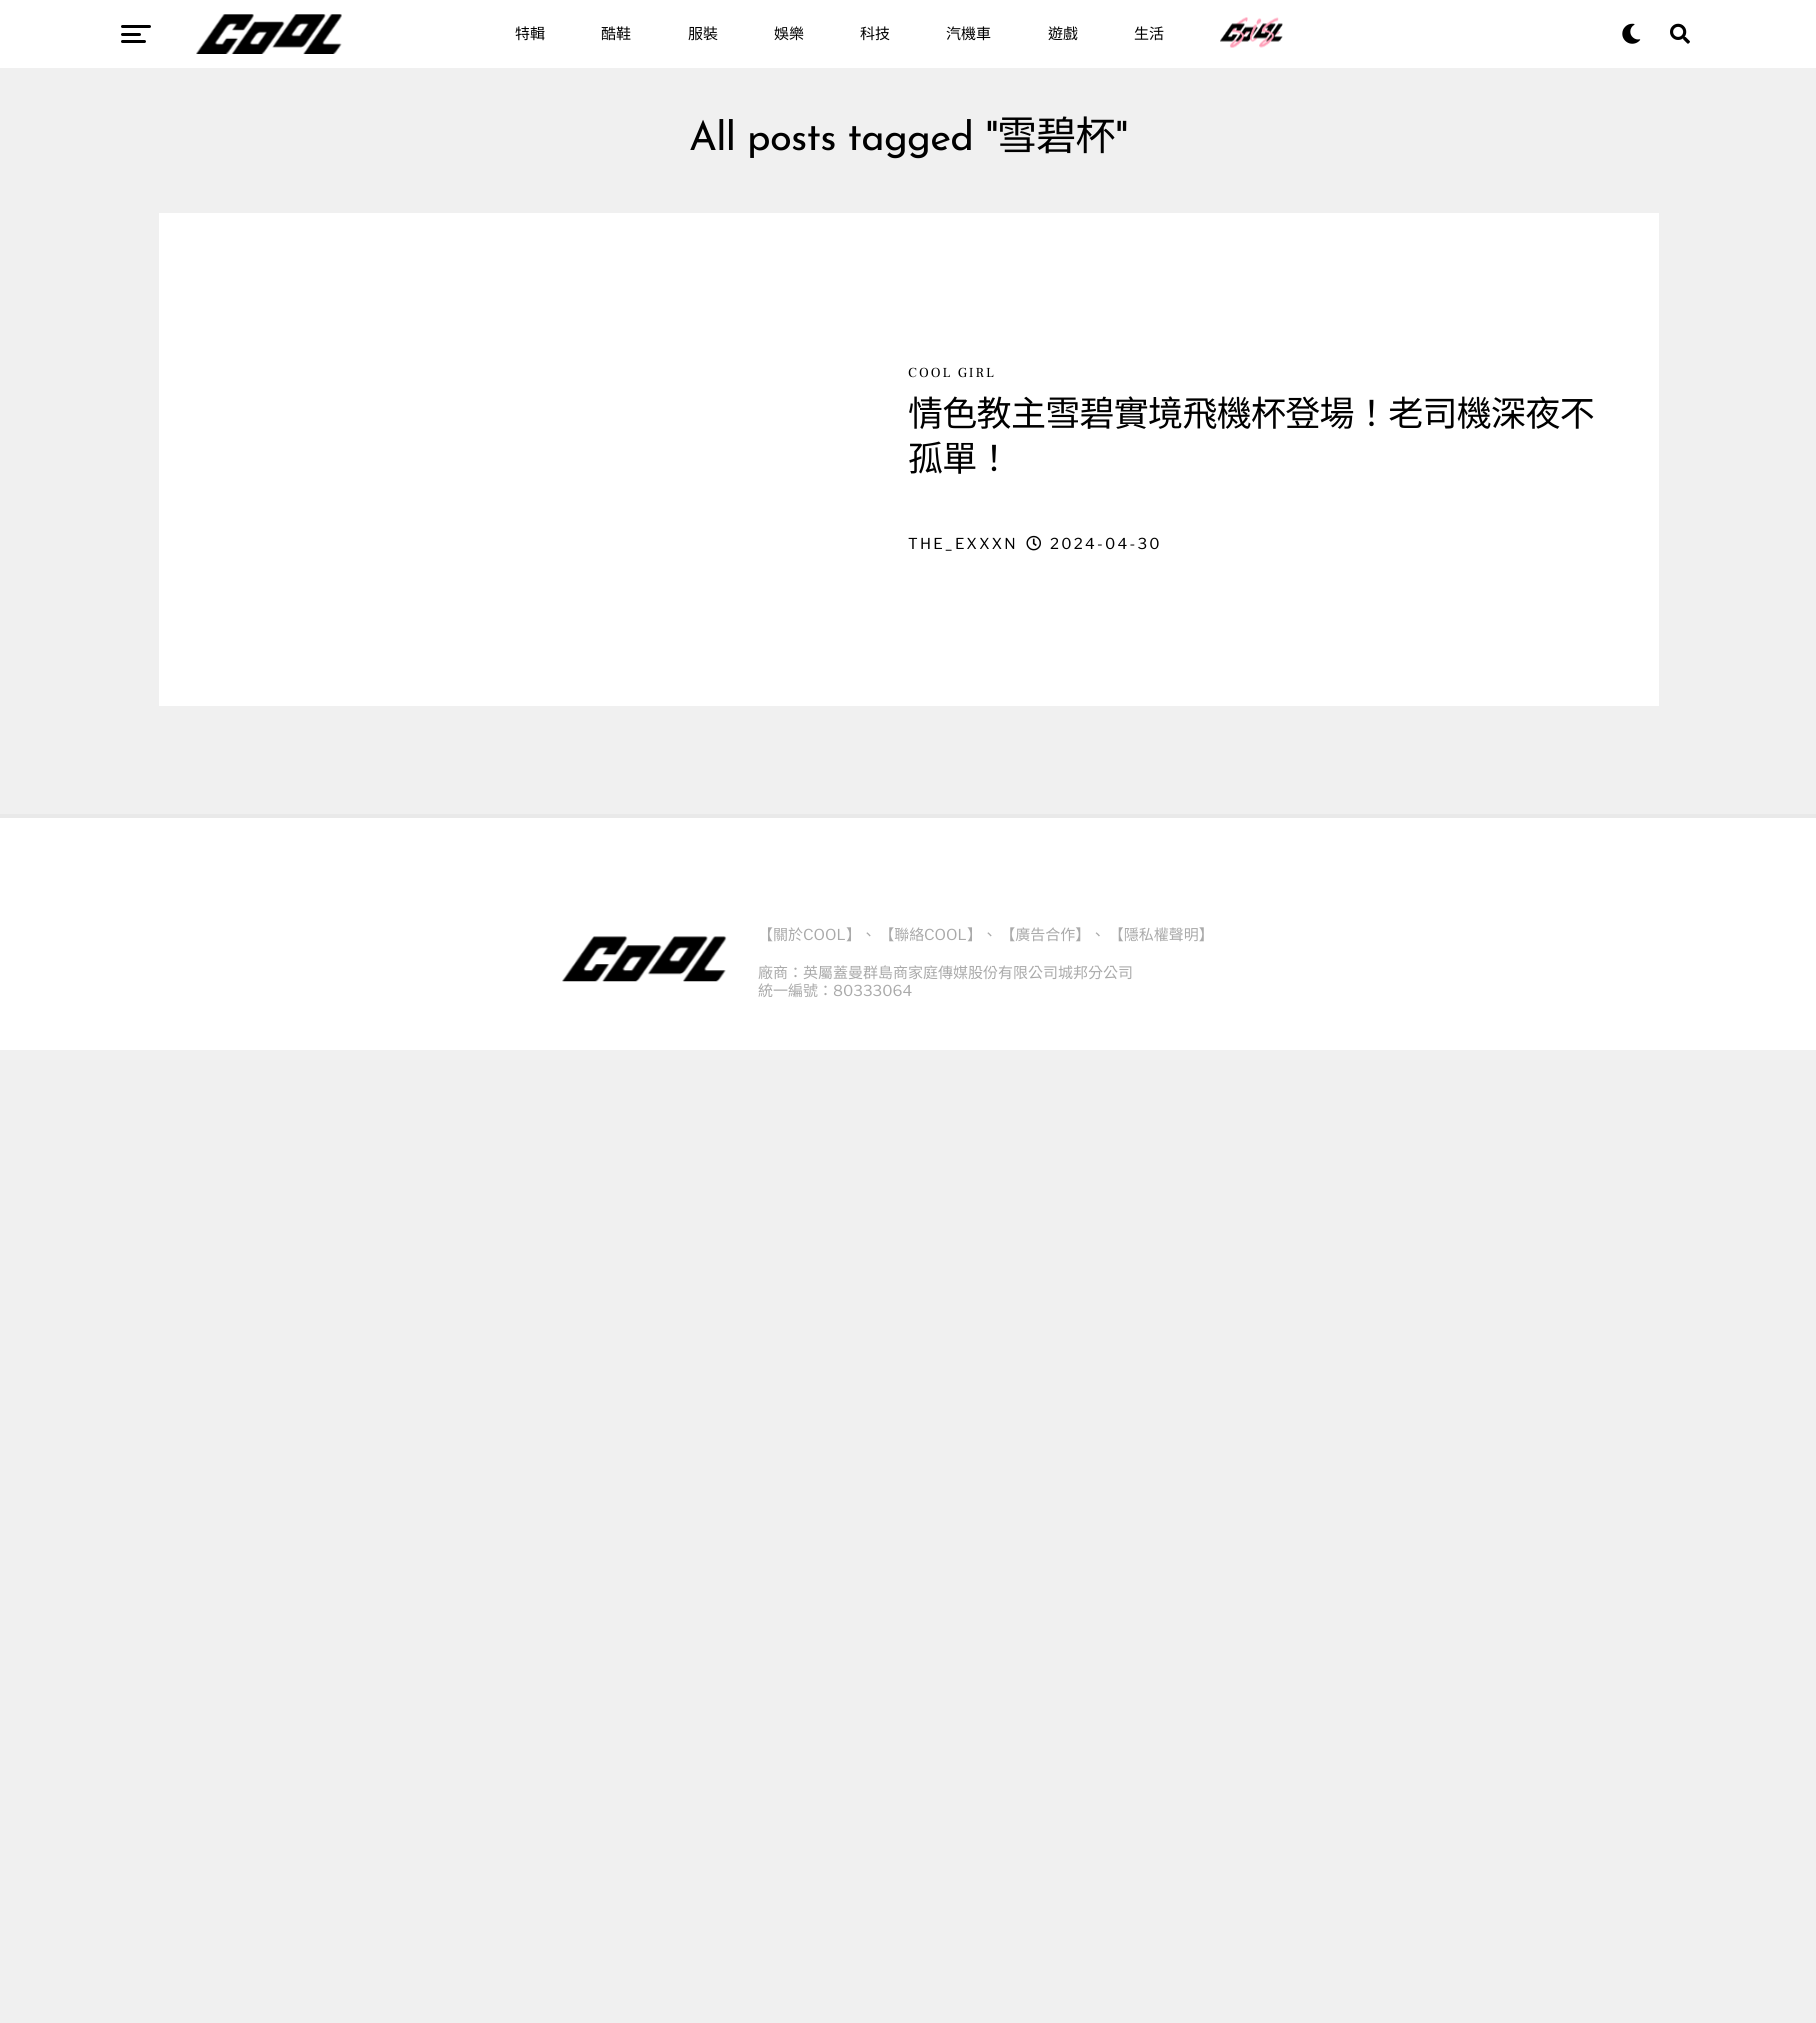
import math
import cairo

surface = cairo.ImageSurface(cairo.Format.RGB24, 1816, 2023)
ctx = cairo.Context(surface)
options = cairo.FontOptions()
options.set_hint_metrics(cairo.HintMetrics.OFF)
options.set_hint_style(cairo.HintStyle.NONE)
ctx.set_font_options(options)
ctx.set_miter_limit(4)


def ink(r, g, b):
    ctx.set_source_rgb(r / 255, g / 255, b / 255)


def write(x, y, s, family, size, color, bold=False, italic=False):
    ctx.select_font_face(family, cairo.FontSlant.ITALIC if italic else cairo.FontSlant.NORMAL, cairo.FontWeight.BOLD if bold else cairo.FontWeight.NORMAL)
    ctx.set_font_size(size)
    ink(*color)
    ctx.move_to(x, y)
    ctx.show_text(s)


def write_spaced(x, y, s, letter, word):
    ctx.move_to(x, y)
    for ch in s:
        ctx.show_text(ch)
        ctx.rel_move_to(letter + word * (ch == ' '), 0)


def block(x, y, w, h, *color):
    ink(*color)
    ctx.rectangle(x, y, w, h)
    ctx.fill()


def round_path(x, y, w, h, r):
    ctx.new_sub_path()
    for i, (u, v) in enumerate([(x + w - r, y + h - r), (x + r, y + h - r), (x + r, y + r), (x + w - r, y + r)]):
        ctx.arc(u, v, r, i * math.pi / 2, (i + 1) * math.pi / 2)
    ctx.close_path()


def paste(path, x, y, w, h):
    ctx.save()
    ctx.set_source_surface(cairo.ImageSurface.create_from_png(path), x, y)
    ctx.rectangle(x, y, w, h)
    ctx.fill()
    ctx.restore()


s1 = dict(family="Noto Sans CJK TC", size=15, color=(0, 0, 0))
s2 = dict(family="Noto Sans CJK TC", size=15, color=(170, 170, 170))
s3 = dict(family="Libre Franklin", size=15, color=(170, 170, 170))

ink(240, 240, 240)
ctx.paint()
block(0, 0, 1816, 68, 255, 255, 255)
ink(0, 0, 0)
round_path(121, 25, 30, 3, 1.5)
ctx.fill()
round_path(121, 33, 20, 3, 1.5)
ctx.fill()
round_path(121, 40, 25, 3, 1.5)
ctx.fill()
paste("pic1.png", 196, 14, 146, 40)
write(515, 39, "特輯", **s1)
write(601, 39, "酷鞋", **s1)
write(688, 39, "服裝", **s1)
write(774, 39, "娛樂", **s1)
write(860, 39, "科技", **s1)
write(946, 39, "汽機車", **s1)
write(1048, 39, "遊戲", **s1)
write(1134, 39, "生活", **s1)
paste("pic2.png", 1220, 17, 63, 31)
paste("pic3.png", 1622, 23, 19, 21)
paste("pic4.png", 1670, 23, 20, 21)
ctx.select_font_face("Josefin Sans")
ctx.set_font_size(40)
write_spaced(689, 150, "All posts tagged \"", -0.75, 0)
ctx.select_font_face("Noto Sans CJK TC")
write_spaced(997, 150, "雪碧杯", -0.75, 0)
ctx.select_font_face("Josefin Sans")
write_spaced(1115, 150, "\"", -0.75, 0)
block(159, 213, 1500, 493, 255, 255, 255)
ctx.select_font_face("Frank Ruhl Libre")
ctx.set_font_size(13.75)
ink(0, 0, 0)
write_spaced(908, 377, "COOL GIRL", 2, 0)
ctx.select_font_face("Noto Sans CJK TC")
ctx.set_font_size(35)
write_spaced(908, 426, "情色教主雪碧實境飛機杯登場！老司機深夜不", -0.7, 0)
write_spaced(908, 471, "孤單！", -0.7, 0)
ctx.select_font_face("Libre Franklin")
ctx.set_font_size(15)
write_spaced(908, 549, "THE_EXXXN", 2.25, 0)
paste("pic5.png", 1026, 535, 15, 16)
write_spaced(1050, 549, "2024-04-30", 2.25, 0)
block(0, 818, 1816, 232, 255, 255, 255)
block(0, 814, 1816, 4, 233, 233, 233)
paste("pic6.png", 562, 936, 165, 46)
write(758, 940, "【關於", **s2)
write(803, 940, "COOL", **s3)
write(846, 940, "】、 【聯絡", **s2)
write(924, 940, "COOL", **s3)
write(967, 940, "】、 【廣告合作】、 【隱私權聲明】", **s2)
write(758, 978, "廠商：英屬蓋曼群島商家庭傳媒股份有限公司城邦分公司", **s2)
write(758, 996, "統一編號：", **s2)
write(833, 996, "80333064", **s3)
surface.write_to_png("screenshot.png")
